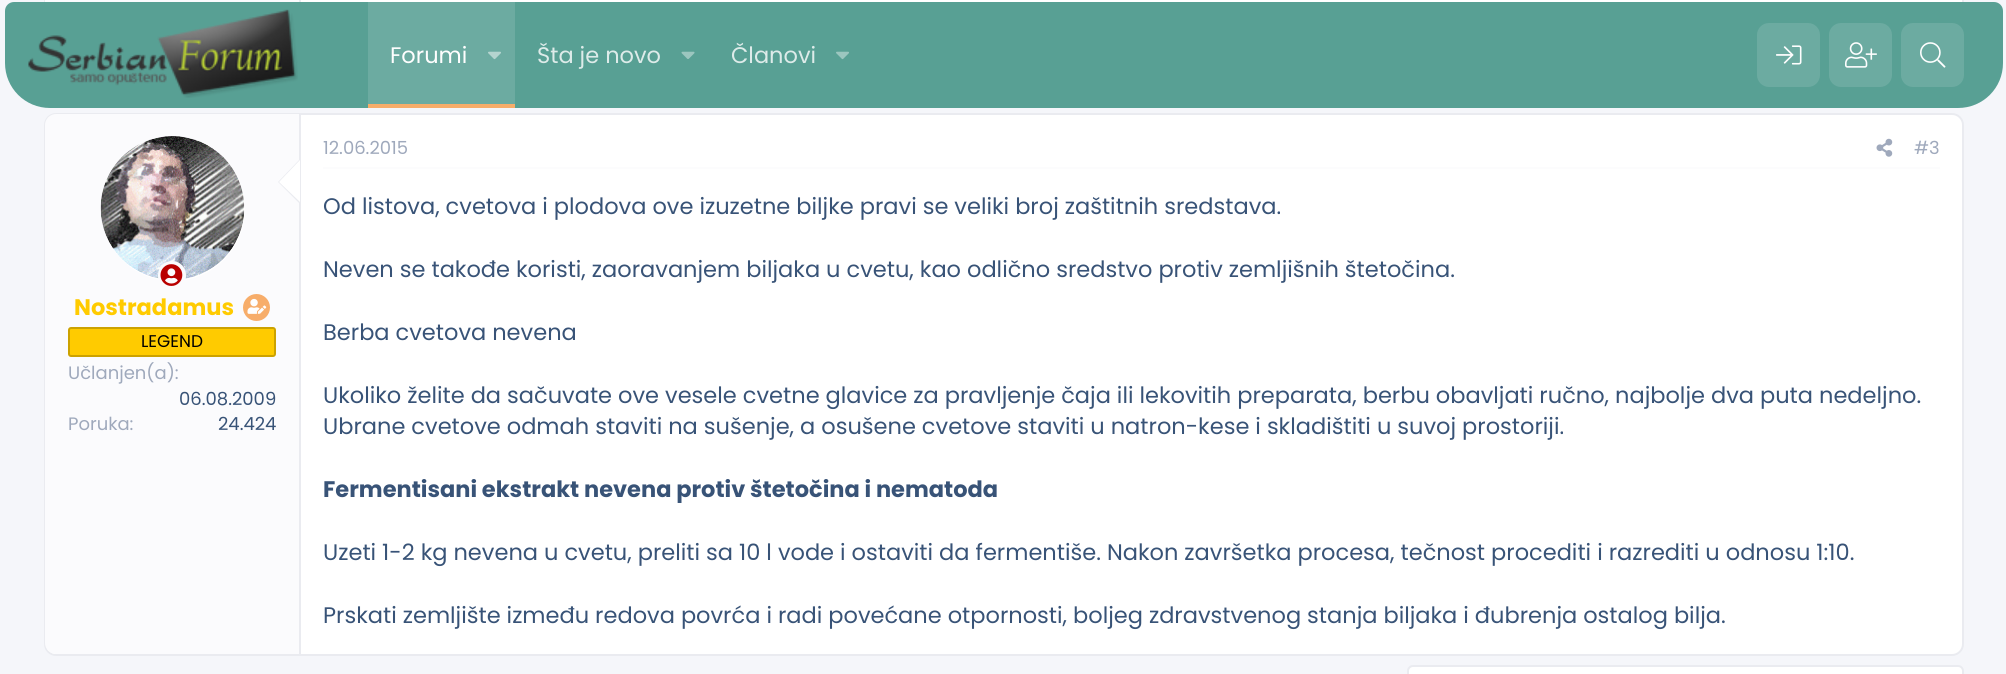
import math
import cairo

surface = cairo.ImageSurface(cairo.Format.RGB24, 2006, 674)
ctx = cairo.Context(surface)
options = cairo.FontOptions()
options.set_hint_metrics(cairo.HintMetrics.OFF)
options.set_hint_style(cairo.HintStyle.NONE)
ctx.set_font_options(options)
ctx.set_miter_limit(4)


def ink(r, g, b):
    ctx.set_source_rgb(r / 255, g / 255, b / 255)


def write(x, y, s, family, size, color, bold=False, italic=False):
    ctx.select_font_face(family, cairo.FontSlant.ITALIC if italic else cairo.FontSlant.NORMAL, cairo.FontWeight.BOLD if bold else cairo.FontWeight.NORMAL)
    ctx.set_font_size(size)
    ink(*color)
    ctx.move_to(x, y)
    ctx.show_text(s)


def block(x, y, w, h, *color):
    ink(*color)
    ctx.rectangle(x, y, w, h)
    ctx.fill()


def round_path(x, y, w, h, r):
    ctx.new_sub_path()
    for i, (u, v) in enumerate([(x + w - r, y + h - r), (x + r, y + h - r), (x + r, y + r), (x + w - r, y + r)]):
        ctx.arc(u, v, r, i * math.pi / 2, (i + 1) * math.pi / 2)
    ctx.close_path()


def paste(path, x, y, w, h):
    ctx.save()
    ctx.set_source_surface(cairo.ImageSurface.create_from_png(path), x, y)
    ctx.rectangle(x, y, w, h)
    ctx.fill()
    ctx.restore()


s1 = dict(family="Poppins", size=22.5, color=(254, 254, 254))
s2 = dict(family="Poppins", size=22.5, color=(221, 235, 233))
s3 = dict(family="Poppins", size=22.5, color=(255, 203, 0), bold=True)
s4 = dict(family="Poppins", size=17, color=(0, 0, 0))
s5 = dict(family="Poppins", size=18, color=(159, 169, 188))
s6 = dict(family="Poppins", size=18, color=(56, 83, 119))
s7 = dict(family="Poppins", size=22.5, color=(56, 83, 119))
s8 = dict(family="Poppins", size=22.5, color=(56, 83, 119), bold=True)

ink(245, 246, 250)
ctx.paint()
block(301, 0, 1661, 2, 255, 255, 255)
ctx.rectangle(45, -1, 1918, 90)
ink(234, 235, 240)
ctx.stroke()
ink(88, 160, 148)
ctx.new_path()
ctx.move_to(14, 2)
ctx.line_to(1994, 2)
ctx.curve_to(1999, 2, 2003, 6, 2003, 11)
ctx.line_to(2003, 63)
ctx.curve_to(2003, 88, 1983, 108, 1958, 108)
ctx.line_to(50, 108)
ctx.curve_to(25, 108, 5, 88, 5, 63)
ctx.line_to(5, 11)
ctx.curve_to(5, 6, 9, 2, 14, 2)
ctx.close_path()
ctx.fill()
paste("pic1.png", 28, 9, 270, 89)
block(368, 2, 147, 102, 108, 171, 161)
block(368, 104, 147, 4, 247, 173, 106)
write(390, 63, "Forumi", **s1)
paste("pic2.png", 488, 51, 13, 9)
write(537, 63, "Šta je novo", **s2)
paste("pic3.png", 681, 51, 14, 8)
write(731, 63, "Članovi", **s2)
paste("pic4.png", 836, 51, 13, 9)
ink(108, 171, 161)
round_path(1757, 23, 63, 64, 12)
ctx.fill()
paste("pic5.png", 1776, 45, 26, 20)
round_path(1829, 23, 63, 64, 12)
ctx.fill()
paste("pic6.png", 1845, 42, 32, 26)
round_path(1901, 23, 63, 64, 12)
ctx.fill()
paste("pic7.png", 1920, 42, 26, 26)
block(45, 0, 254, 2, 251, 251, 253)
block(299, 0, 2, 2, 234, 235, 240)
ink(255, 255, 255)
round_path(45, 114, 1918, 541, 11)
ctx.fill_preserve()
ink(234, 235, 240)
ctx.stroke()
ink(251, 251, 253)
ctx.new_path()
ctx.move_to(56, 114)
ctx.line_to(300, 114)
ctx.line_to(300, 654)
ctx.line_to(56, 654)
ctx.curve_to(50, 654, 45, 649, 45, 643)
ctx.line_to(45, 125)
ctx.curve_to(45, 119, 50, 114, 56, 114)
ctx.close_path()
ctx.fill()
block(299, 114, 2, 540, 234, 235, 240)
ink(255, 255, 255)
ctx.arc(173, 209, 72, 0, 2 * math.pi)
ctx.fill()
paste("pic8.png", 100, 136, 145, 143)
ink(251, 251, 253)
round_path(159.5, 262.5, 25, 26, 12.5)
ctx.fill_preserve()
ctx.set_line_width(3)
ctx.stroke()
paste("pic9.png", 160, 264, 23, 22)
ink(234, 235, 240)
ctx.new_path()
ctx.move_to(300, 159)
ctx.line_to(300, 204)
ctx.line_to(278, 182)
ctx.close_path()
ctx.fill()
ink(255, 255, 255)
ctx.new_path()
ctx.move_to(300, 160)
ctx.line_to(300, 202)
ctx.line_to(279, 182)
ctx.close_path()
ctx.fill()
write(74, 315, "Nostradamus", **s3)
ink(247, 173, 106)
ctx.new_path()
ctx.arc(256.5, 307.5, 13.5, 0, 2 * math.pi)
ctx.fill()
paste("pic10.png", 247, 298, 20, 16)
ink(255, 203, 0)
round_path(69, 328, 206, 28, 2)
ctx.fill_preserve()
ink(204, 162, 0)
ctx.set_line_width(2)
ctx.stroke()
write(141, 347, "LEGEND", **s4)
write(68, 379, "Učlanjen(a):", **s5)
write(179, 405, "06.08.2009", **s6)
write(68, 430, "Poruka:", **s5)
write(218, 430, "24.424", **s6)
block(323, 167, 1617, 2, 252, 252, 253)
write(323, 154, "12.06.2015", **s5)
paste("pic11.png", 1876, 138, 17, 19)
write(1914, 154, "#3", **s5)
write(323, 214, "Od listova, cvetova i plodova ove izuzetne biljke pravi se veliki broj zaštitnih sredstava.", **s7)
write(323, 277, "Neven se takođe koristi, zaoravanjem biljaka u cvetu, kao odlično sredstvo protiv zemljišnih štetočina.", **s7)
write(323, 340, "Berba cvetova nevena", **s7)
write(323, 403, "Ukoliko želite da sačuvate ove vesele cvetne glavice za pravljenje čaja ili lekovitih preparata, berbu obavljati ručno, najbolje dva puta nedeljno.", **s7)
write(323, 434, "Ubrane cvetove odmah staviti na sušenje, a osušene cvetove staviti u natron-kese i skladištiti u suvoj prostoriji.", **s7)
write(323, 497, "Fermentisani ekstrakt nevena protiv štetočina i nematoda", **s8)
write(323, 560, "Uzeti 1-2 kg nevena u cvetu, preliti sa 10 l vode i ostaviti da fermentiše. Nakon završetka procesa, tečnost procediti i razrediti u odnosu 1:10.", **s7)
write(323, 623, "Prskati zemljište između redova povrća i radi povećane otpornosti, boljeg zdravstvenog stanja biljaka i đubrenja ostalog bilja.", **s7)
ink(255, 255, 255)
round_path(1408, 666, 555, 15, 5)
ctx.fill_preserve()
ink(234, 235, 240)
ctx.stroke()
surface.write_to_png("screenshot.png")
